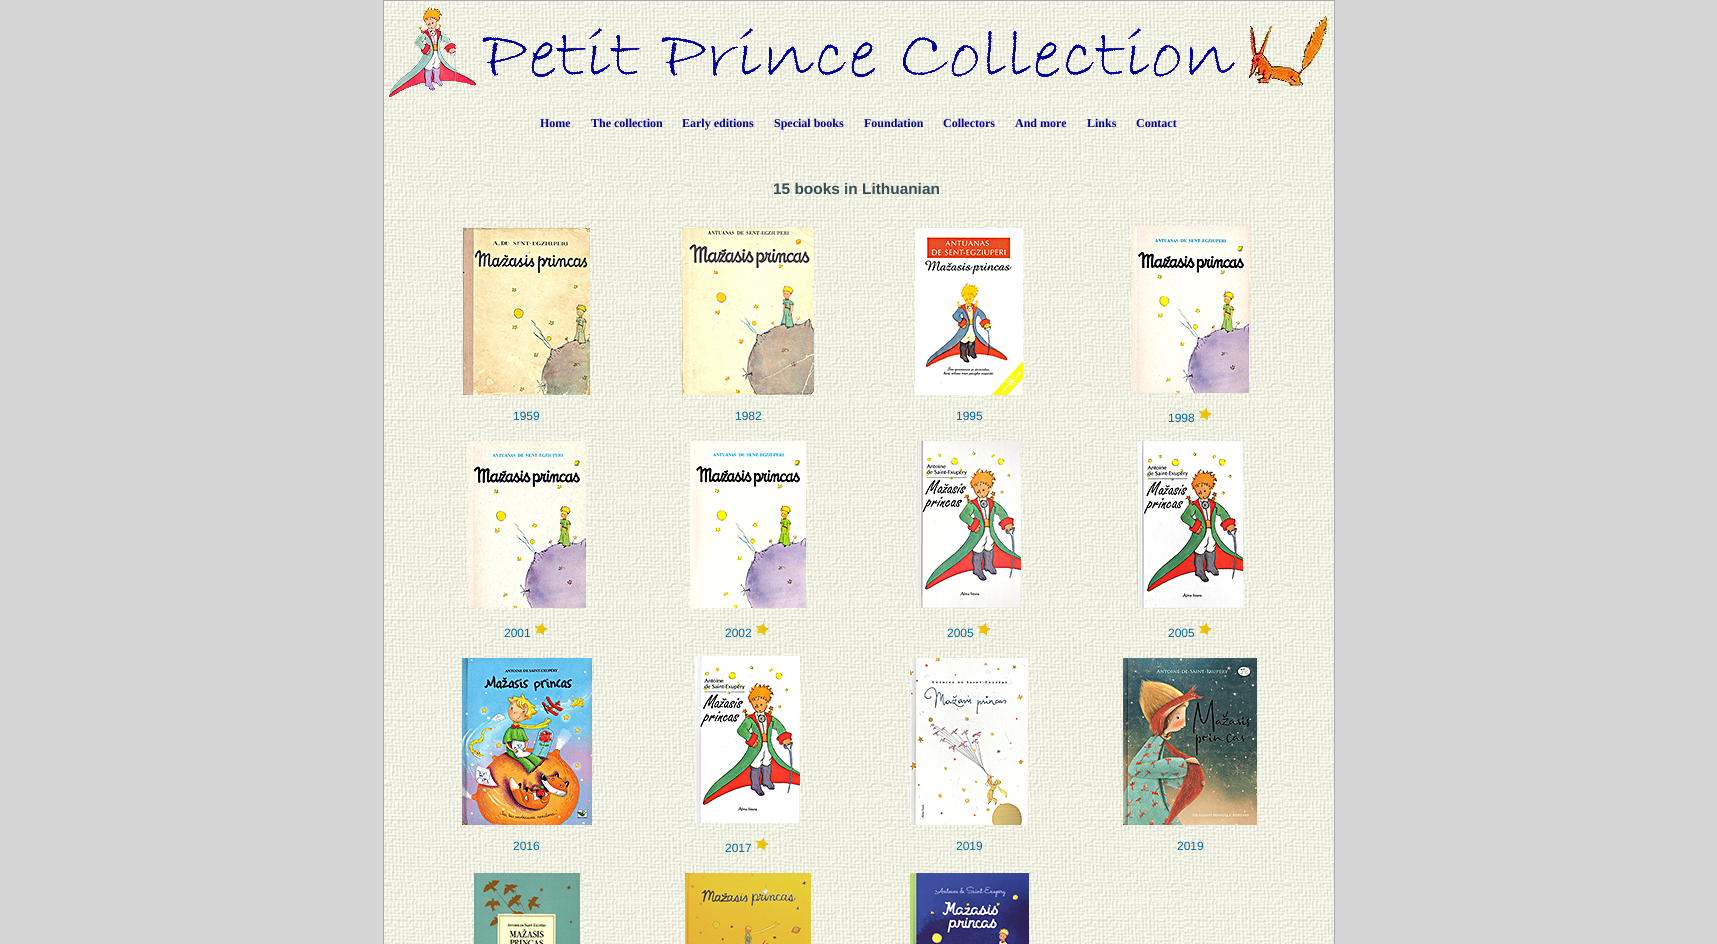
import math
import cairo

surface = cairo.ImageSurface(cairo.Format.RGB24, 1717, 944)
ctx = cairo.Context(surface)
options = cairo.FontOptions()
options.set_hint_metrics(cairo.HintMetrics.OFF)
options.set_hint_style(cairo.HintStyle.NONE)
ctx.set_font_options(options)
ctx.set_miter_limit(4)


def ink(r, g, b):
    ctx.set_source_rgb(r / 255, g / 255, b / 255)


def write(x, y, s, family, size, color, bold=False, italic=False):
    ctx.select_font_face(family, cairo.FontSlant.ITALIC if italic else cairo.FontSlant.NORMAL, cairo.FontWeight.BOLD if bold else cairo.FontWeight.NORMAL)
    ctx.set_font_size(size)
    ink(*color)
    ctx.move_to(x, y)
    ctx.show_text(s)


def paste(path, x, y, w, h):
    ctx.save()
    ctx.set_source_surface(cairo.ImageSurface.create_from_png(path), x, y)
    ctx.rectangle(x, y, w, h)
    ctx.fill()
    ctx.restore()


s1 = dict(family="Liberation Serif", size=12, color=(0, 0, 153), bold=True)
s2 = dict(family="Liberation Sans", size=15.4, color=(51, 77, 85), bold=True)
s3 = dict(family="Liberation Sans", size=12, color=(0, 102, 153))

ink(214, 214, 214)
ctx.paint()
paste("pic1.png", 384, 1, 950, 943)
ctx.rectangle(383.5, 0.5, 951, 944)
ink(170, 170, 170)
ctx.set_line_width(1)
ctx.stroke()
paste("pic2.png", 389, 7, 938, 90)
write(540, 127, "Home", **s1)
write(591, 127, "The collection", **s1)
write(682, 127, "Early editions", **s1)
write(774, 127, "Special books", **s1)
write(864, 127, "Foundation", **s1)
write(943, 127, "Collectors", **s1)
write(1015, 127, "And more", **s1)
write(1087, 127, "Links", **s1)
write(1136, 127, "Contact", **s1)
write(773, 194, "15 books in Lithuanian", **s2)
paste("pic3.png", 463, 228, 127, 167)
write(513, 420, "1959", **s3)
paste("pic4.png", 682, 228, 132, 167)
write(735, 420, "1982", **s3)
paste("pic5.png", 915, 228, 108, 167)
write(956, 420, "1995", **s3)
paste("pic6.png", 1131, 226, 118, 167)
write(1168, 422, "1998", **s3)
paste("pic7.png", 1199, 407, 13, 14)
paste("pic8.png", 468, 441, 118, 167)
write(504, 637, "2001", **s3)
paste("pic9.png", 534, 623, 14, 13)
paste("pic10.png", 690, 441, 116, 167)
write(725, 637, "2002", **s3)
paste("pic11.png", 755, 623, 14, 13)
paste("pic12.png", 917, 441, 104, 167)
write(947, 637, "2005", **s3)
paste("pic13.png", 977, 622, 15, 14)
paste("pic14.png", 1137, 441, 106, 167)
write(1168, 637, "2005", **s3)
paste("pic15.png", 1198, 623, 14, 13)
paste("pic16.png", 462, 658, 130, 167)
write(513, 850, "2016", **s3)
paste("pic17.png", 695, 656, 105, 167)
write(725, 852, "2017", **s3)
paste("pic18.png", 755, 838, 15, 13)
paste("pic19.png", 910, 658, 118, 167)
write(956, 850, "2019", **s3)
paste("pic20.png", 1123, 658, 134, 167)
write(1177, 850, "2019", **s3)
paste("pic21.png", 474, 873, 106, 71)
paste("pic22.png", 685, 873, 126, 71)
paste("pic23.png", 910, 873, 119, 71)
surface.write_to_png("screenshot.png")
